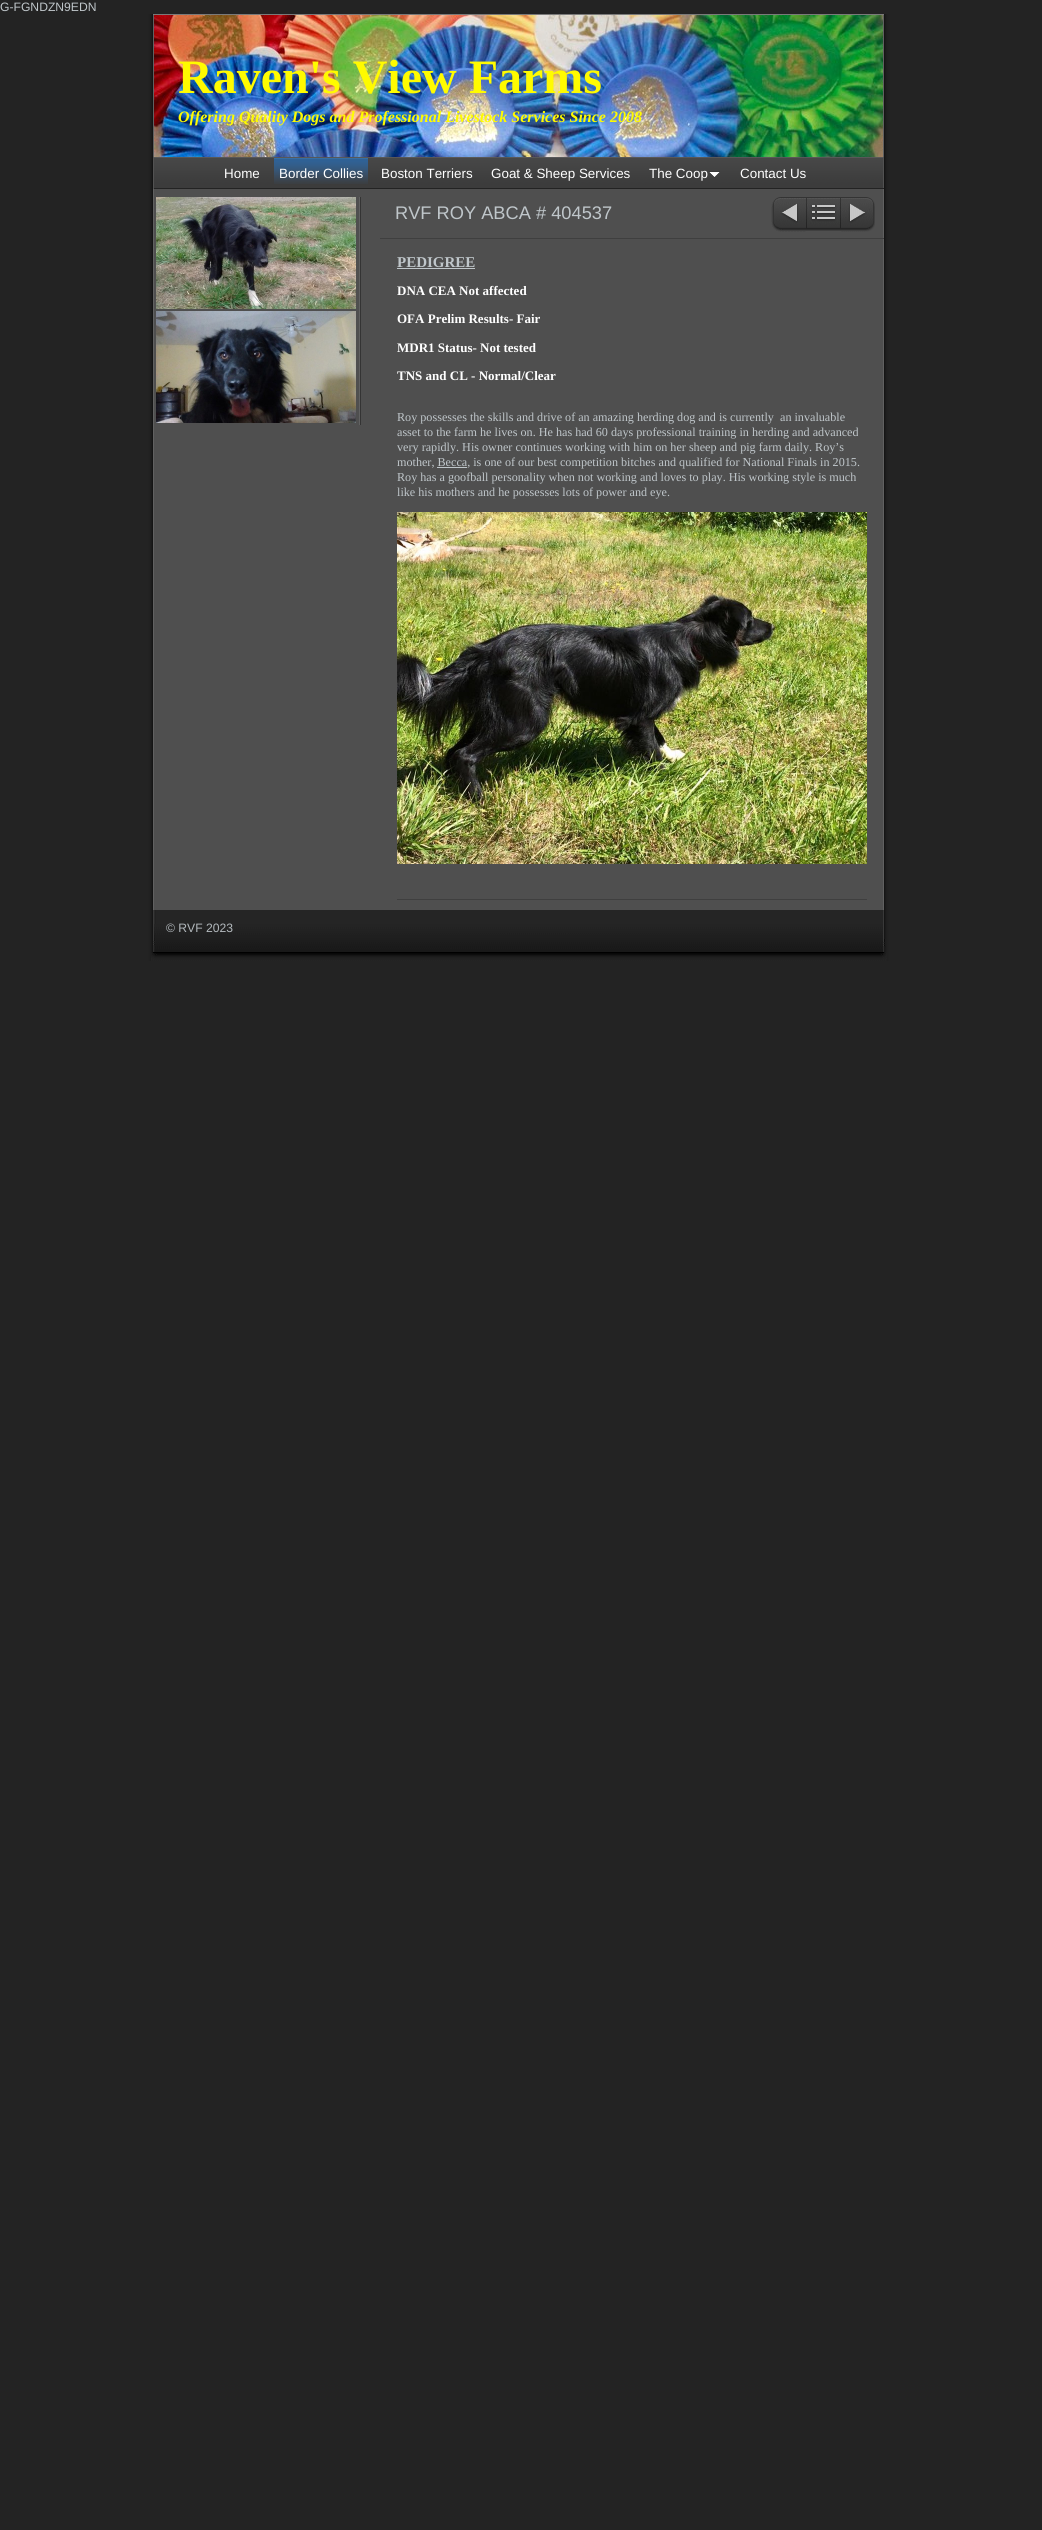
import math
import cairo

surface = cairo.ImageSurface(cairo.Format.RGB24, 1042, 2530)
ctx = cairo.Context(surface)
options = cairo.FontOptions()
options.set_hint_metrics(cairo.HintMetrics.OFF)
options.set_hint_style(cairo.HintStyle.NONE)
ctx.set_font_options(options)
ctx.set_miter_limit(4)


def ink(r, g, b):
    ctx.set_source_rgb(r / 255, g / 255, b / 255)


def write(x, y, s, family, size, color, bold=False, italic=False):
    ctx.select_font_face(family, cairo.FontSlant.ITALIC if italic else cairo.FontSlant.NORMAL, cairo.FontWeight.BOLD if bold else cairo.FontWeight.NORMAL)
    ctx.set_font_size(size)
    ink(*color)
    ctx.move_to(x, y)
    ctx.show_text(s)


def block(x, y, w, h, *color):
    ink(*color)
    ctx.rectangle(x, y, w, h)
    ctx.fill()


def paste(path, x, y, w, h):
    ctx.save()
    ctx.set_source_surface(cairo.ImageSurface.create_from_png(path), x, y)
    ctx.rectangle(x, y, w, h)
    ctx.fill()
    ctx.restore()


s1 = dict(family="Liberation Sans", size=12.15, color=(191, 198, 202))
s2 = dict(family="Liberation Serif", size=48, color=(255, 251, 0), bold=True)
s3 = dict(family="Liberation Serif", size=16, color=(255, 251, 0), bold=True, italic=True)
s4 = dict(family="Liberation Sans", size=13.4, color=(255, 255, 255))
s5 = dict(family="Liberation Sans", size=18.25, color=(191, 198, 202))
s6 = dict(family="Liberation Serif", size=15, color=(191, 198, 202), bold=True)
s7 = dict(family="Liberation Serif", size=13, color=(255, 255, 255), bold=True)
s8 = dict(family="Liberation Serif", size=12.15, color=(191, 198, 202))
s9 = dict(family="Liberation Sans", size=12.15, color=(179, 185, 189))

ink(35, 35, 35)
ctx.paint()
write(0, 11, "G-FGNDZN9EDN", **s1)
paste("pic1.png", 136, 14, 771, 947)
paste("pic2.png", 154, 15, 729, 142)
block(153, 14, 731, 1, 122, 122, 122)
write(178, 93, "Raven's View Farms", **s2)
write(178, 122, "Offering Quality Dogs and Professional Livestock Services Since 2008", **s3)
paste("pic3.png", 154, 158, 729, 30)
block(153, 157, 731, 1, 88, 88, 88)
block(883, 157, 1, 32, 82, 82, 82)
block(153, 188, 731, 1, 35, 35, 35)
block(153, 157, 1, 32, 82, 82, 82)
write(224, 178, "Home", **s4)
paste("pic4.png", 274, 158, 94, 26)
write(279, 178, "Border Collies", **s4)
write(381, 178, "Boston Terriers", **s4)
write(491, 178, "Goat & Sheep Services", **s4)
write(649, 178, "The Coop", **s4)
paste("pic5.png", 709, 171, 11, 7)
write(740, 178, "Contact Us", **s4)
paste("pic6.png", 359, 197, 2, 228)
paste("pic7.png", 156, 197, 200, 112)
paste("pic8.png", 156, 311, 200, 112)
block(380, 238, 504, 1, 63, 63, 63)
write(395, 219, "RVF ROY ABCA # 404537", **s5)
paste("pic9.png", 771, 197, 35, 35)
paste("pic10.png", 806, 197, 35, 34)
paste("pic11.png", 841, 197, 34, 35)
block(397, 899, 470, 1, 63, 63, 63)
write(397, 267, "PEDIGREE", **s6)
block(397, 268, 78, 1, 191, 198, 202)
write(397, 295, "DNA CEA Not affected", **s7)
write(397, 323, "OFA Prelim Results- Fair", **s7)
write(397, 352, "MDR1 Status- Not tested", **s7)
write(397, 380, "TNS and CL - Normal/Clear", **s7)
write(397, 421, "Roy possesses the skills and drive of an amazing herding dog and is currently  an invaluable", **s8)
write(397, 436, "asset to the farm he lives on. He has had 60 days professional training in herding and advanced", **s8)
write(397, 451, "very rapidly. His owner continues working with him on her sheep and pig farm daily. Roy’s", **s8)
write(397, 466, "mother, Becca, is one of our best competition bitches and qualified for National Finals in 2015.", **s8)
block(437, 467, 30, 1, 191, 198, 202)
write(397, 481, "Roy has a goofball personality when not working and loves to play. His working style is much", **s8)
write(397, 496, "like his mothers and he possesses lots of power and eye.", **s8)
paste("pic12.png", 397, 512, 470, 352)
paste("pic13.png", 151, 910, 736, 51)
write(166, 932, "© RVF 2023", **s9)
surface.write_to_png("screenshot.png")
